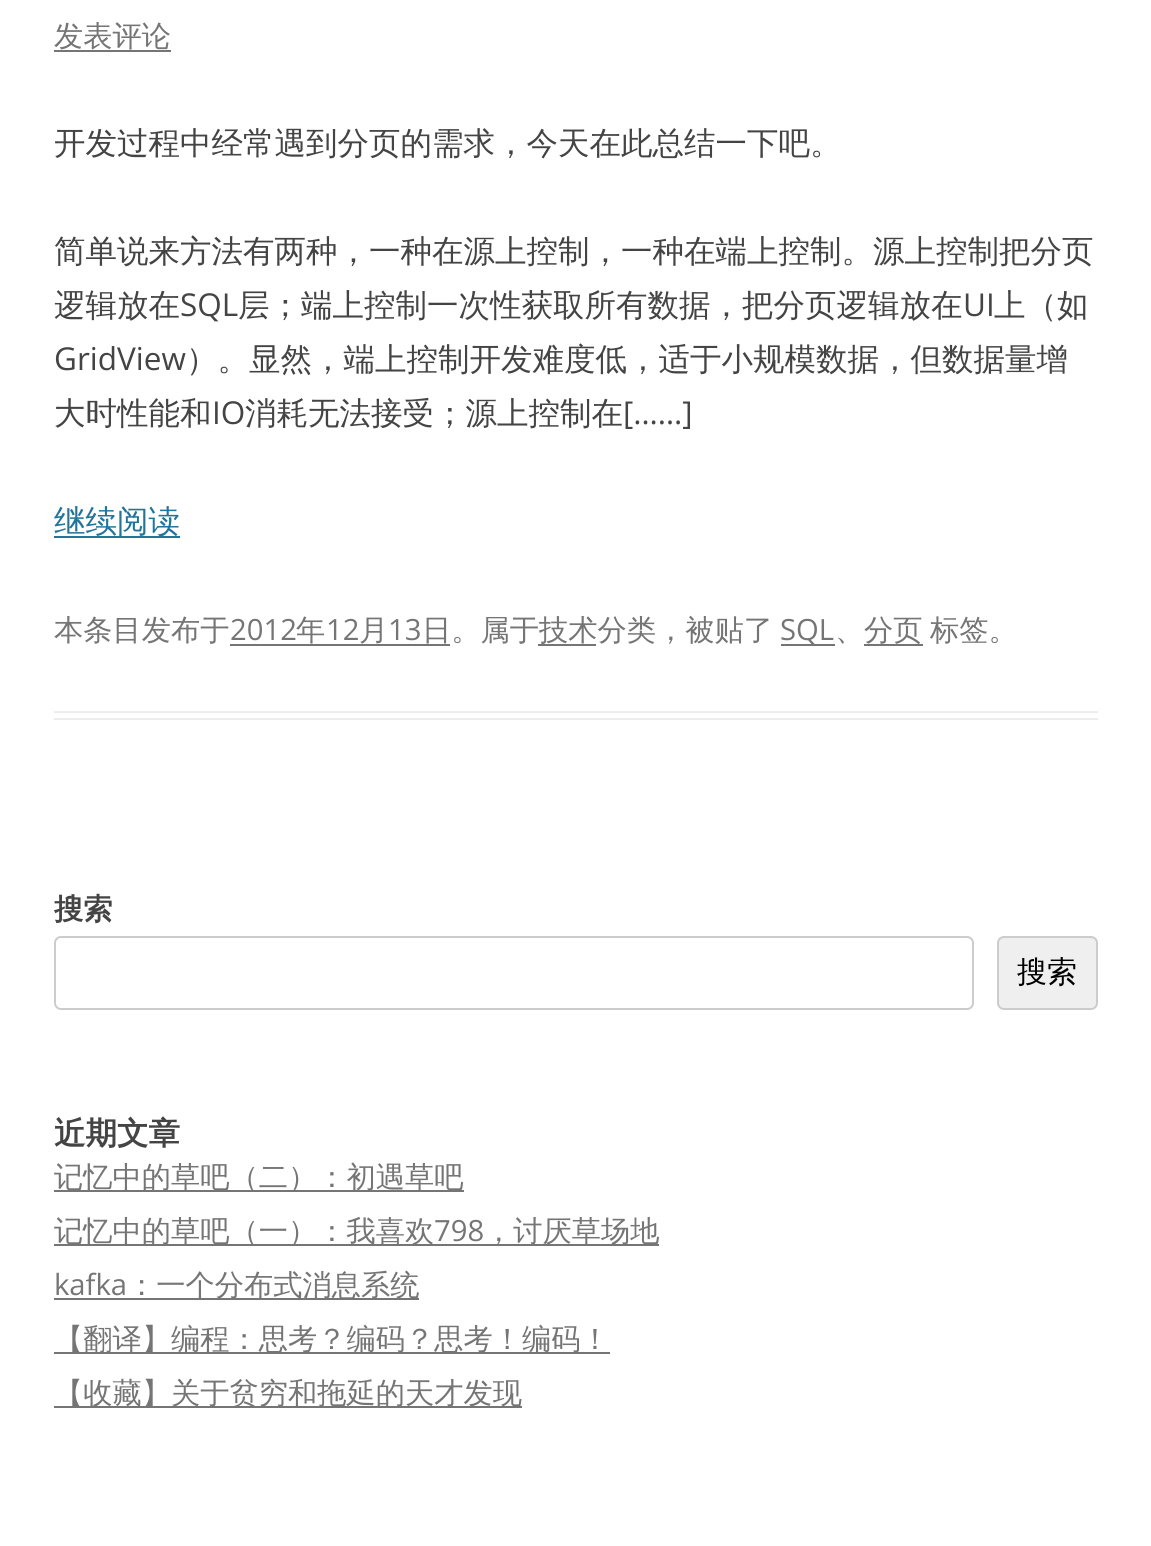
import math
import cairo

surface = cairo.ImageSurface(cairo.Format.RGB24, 1151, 1546)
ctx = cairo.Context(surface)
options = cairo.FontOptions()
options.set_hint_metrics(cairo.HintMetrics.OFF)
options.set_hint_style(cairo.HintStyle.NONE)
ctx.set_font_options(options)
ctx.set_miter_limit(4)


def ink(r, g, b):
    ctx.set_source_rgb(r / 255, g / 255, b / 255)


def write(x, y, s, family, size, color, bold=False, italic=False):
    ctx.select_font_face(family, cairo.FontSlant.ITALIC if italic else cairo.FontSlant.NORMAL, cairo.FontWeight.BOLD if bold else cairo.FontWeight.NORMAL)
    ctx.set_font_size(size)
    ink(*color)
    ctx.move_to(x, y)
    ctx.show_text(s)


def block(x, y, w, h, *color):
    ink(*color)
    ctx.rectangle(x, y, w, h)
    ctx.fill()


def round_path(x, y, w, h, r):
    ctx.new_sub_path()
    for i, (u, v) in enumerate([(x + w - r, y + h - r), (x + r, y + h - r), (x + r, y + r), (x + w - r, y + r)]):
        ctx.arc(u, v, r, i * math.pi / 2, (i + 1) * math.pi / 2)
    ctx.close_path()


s1 = dict(family="WenQuanYi Zen Hei Medium", size=29.25, color=(117, 117, 117))
s2 = dict(family="WenQuanYi Zen Hei Medium", size=31.5, color=(68, 68, 68))
s3 = dict(family="Open Sans", size=31.5, color=(68, 68, 68))
s4 = dict(family="WenQuanYi Zen Hei Medium", size=31.5, color=(33, 117, 155))
s5 = dict(family="Open Sans", size=29.25, color=(117, 117, 117))
s6 = dict(family="WenQuanYi Zen Hei", size=29.25, color=(68, 68, 68), bold=True)
s7 = dict(family="WenQuanYi Zen Hei Medium", size=30, color=(0, 0, 0))
s8 = dict(family="WenQuanYi Zen Hei", size=31.5, color=(68, 68, 68), bold=True)

ink(255, 255, 255)
ctx.paint()
block(54, 711, 1044, 2, 237, 237, 237)
block(54, 718, 1044, 2, 237, 237, 237)
write(54, 46, "发表评论", **s1)
block(54, 50, 117, 2, 117, 117, 117)
write(54, 154, "开发过程中经常遇到分页的需求，今天在此总结一下吧。", **s2)
write(54, 262, "简单说来方法有两种，一种在源上控制，一种在端上控制。源上控制把分页", **s2)
write(54, 316, "逻辑放在", **s2)
write(180, 316, "SQL", **s3)
write(238, 316, "层；端上控制一次性获取所有数据，把分页逻辑放在", **s2)
write(963, 316, "UI", **s3)
write(994, 316, "上（如", **s2)
write(54, 370, "GridView", **s3)
write(186, 370, "）。显然，端上控制开发难度低，适于小规模数据，但数据量增", **s2)
write(54, 424, "大时性能和", **s2)
write(212, 424, "IO", **s3)
write(245, 424, "消耗无法接受；源上控制在", **s2)
write(623, 424, "[……]", **s3)
block(54, 536, 126, 2, 33, 117, 155)
write(54, 532, "继续阅读", **s4)
write(54, 640, "本条目发布于", **s1)
write(230, 640, "2012", **s5)
write(296, 640, "年", **s1)
write(326, 640, "12", **s5)
write(359, 640, "月", **s1)
block(230, 644, 220, 2, 117, 117, 117)
write(388, 640, "13", **s5)
write(422, 640, "日。属于", **s1)
block(538, 644, 58, 2, 117, 117, 117)
write(539, 640, "技术分类，被贴了", **s1)
block(781, 644, 54, 2, 117, 117, 117)
write(780, 640, "SQL", **s5)
write(835, 640, "、", **s1)
block(864, 644, 59, 2, 117, 117, 117)
write(864, 640, "分页", **s1)
write(930, 640, "标签。", **s1)
write(54, 919, "搜索", **s6)
round_path(55, 937, 918, 72, 6)
ink(204, 204, 204)
ctx.stroke()
ink(239, 239, 239)
round_path(998, 937, 99, 72, 6)
ctx.fill_preserve()
ink(204, 204, 204)
ctx.stroke()
write(1017, 982, "搜索", **s7)
write(54, 1144, "近期文章", **s8)
block(54, 1190, 410, 2, 117, 117, 117)
write(54, 1187, "记忆中的草吧（二）：初遇草吧", **s1)
block(54, 1244, 605, 2, 117, 117, 117)
write(54, 1241, "记忆中的草吧（一）：我喜欢", **s1)
write(434, 1241, "798", **s5)
write(484, 1241, "，讨厌草场地", **s1)
write(54, 1295, "kafka", **s5)
block(54, 1298, 365, 2, 117, 117, 117)
write(127, 1295, "：一个分布式消息系统", **s1)
block(54, 1352, 556, 2, 117, 117, 117)
write(54, 1349, "【翻译】编程：思考？编码？思考！编码！", **s1)
block(54, 1406, 468, 2, 117, 117, 117)
write(54, 1403, "【收藏】关于贫穷和拖延的天才发现", **s1)
surface.write_to_png("screenshot.png")
